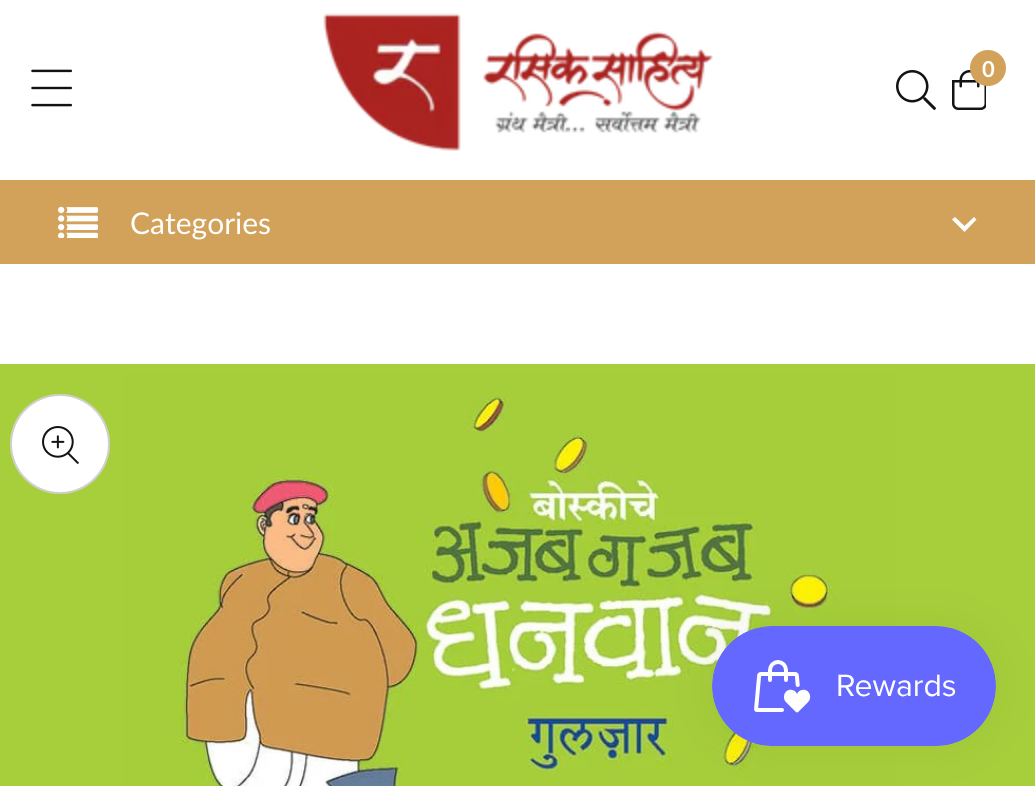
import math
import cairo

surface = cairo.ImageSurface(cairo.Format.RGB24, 1035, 786)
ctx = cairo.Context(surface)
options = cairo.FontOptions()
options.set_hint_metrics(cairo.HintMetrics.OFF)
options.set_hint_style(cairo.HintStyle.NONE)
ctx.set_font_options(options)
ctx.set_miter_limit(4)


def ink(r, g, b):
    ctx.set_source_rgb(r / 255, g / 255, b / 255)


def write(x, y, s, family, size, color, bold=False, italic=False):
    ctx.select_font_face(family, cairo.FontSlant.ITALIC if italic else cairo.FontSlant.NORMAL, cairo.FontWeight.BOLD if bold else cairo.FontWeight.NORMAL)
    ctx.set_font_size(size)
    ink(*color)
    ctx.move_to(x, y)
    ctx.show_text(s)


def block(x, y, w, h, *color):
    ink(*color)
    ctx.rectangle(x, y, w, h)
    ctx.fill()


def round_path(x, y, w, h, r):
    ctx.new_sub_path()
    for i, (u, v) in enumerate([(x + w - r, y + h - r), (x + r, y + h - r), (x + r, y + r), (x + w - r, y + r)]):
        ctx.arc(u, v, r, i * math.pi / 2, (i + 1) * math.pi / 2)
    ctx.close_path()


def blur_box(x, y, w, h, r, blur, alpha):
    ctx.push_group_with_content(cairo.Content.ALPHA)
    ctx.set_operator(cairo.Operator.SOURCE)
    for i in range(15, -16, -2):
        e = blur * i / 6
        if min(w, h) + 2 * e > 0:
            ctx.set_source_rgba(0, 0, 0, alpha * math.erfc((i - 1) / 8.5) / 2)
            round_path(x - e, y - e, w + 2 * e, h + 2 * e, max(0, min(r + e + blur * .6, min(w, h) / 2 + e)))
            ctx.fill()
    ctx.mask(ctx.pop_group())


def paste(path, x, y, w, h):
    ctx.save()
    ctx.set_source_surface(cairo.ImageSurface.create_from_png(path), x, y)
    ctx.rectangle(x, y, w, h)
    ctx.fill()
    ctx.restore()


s1 = dict(family="Lato", size=22, color=(255, 255, 255), bold=True)
s2 = dict(family="Lato", size=30, color=(255, 255, 255))

ink(255, 255, 255)
ctx.paint()
paste("pic1.png", 31, 69, 41, 38)
paste("pic2.png", 323, 13, 390, 138)
paste("pic3.png", 896, 70, 40, 40)
paste("pic4.png", 952, 70, 34, 40)
ink(210, 162, 90)
ctx.arc(988, 68, 18, 0, 2 * math.pi)
ctx.fill()
write(982, 77, "0", **s1)
block(0, 180, 1035, 84, 210, 162, 90)
paste("pic5.png", 58, 206, 40, 32)
write(130, 234, "Categories", **s2)
ctx.new_path()
ctx.move_to(974, 217)
ctx.line_to(964.5, 226)
ctx.line_to(955, 217)
ctx.line_to(952, 219.5)
ctx.line_to(964.5, 232)
ctx.line_to(976.5, 219.5)
ctx.close_path()
ctx.fill()
paste("pic6.png", 0, 364, 1035, 422)
ctx.arc(60, 444, 50, 0, 2 * math.pi)
ctx.fill()
ctx.arc(60, 444, 49, 0, 2 * math.pi)
ctx.set_source_rgba(0.075, 0.075, 0.075, 0.2)
ctx.stroke()
paste("pic7.png", 42, 426, 37, 38)
ink(0, 0, 0)
blur_box(712, 626, 284, 120, 60, 25, 0.05)
paste("pic8.png", 712, 626, 284, 120)
surface.write_to_png("screenshot.png")
